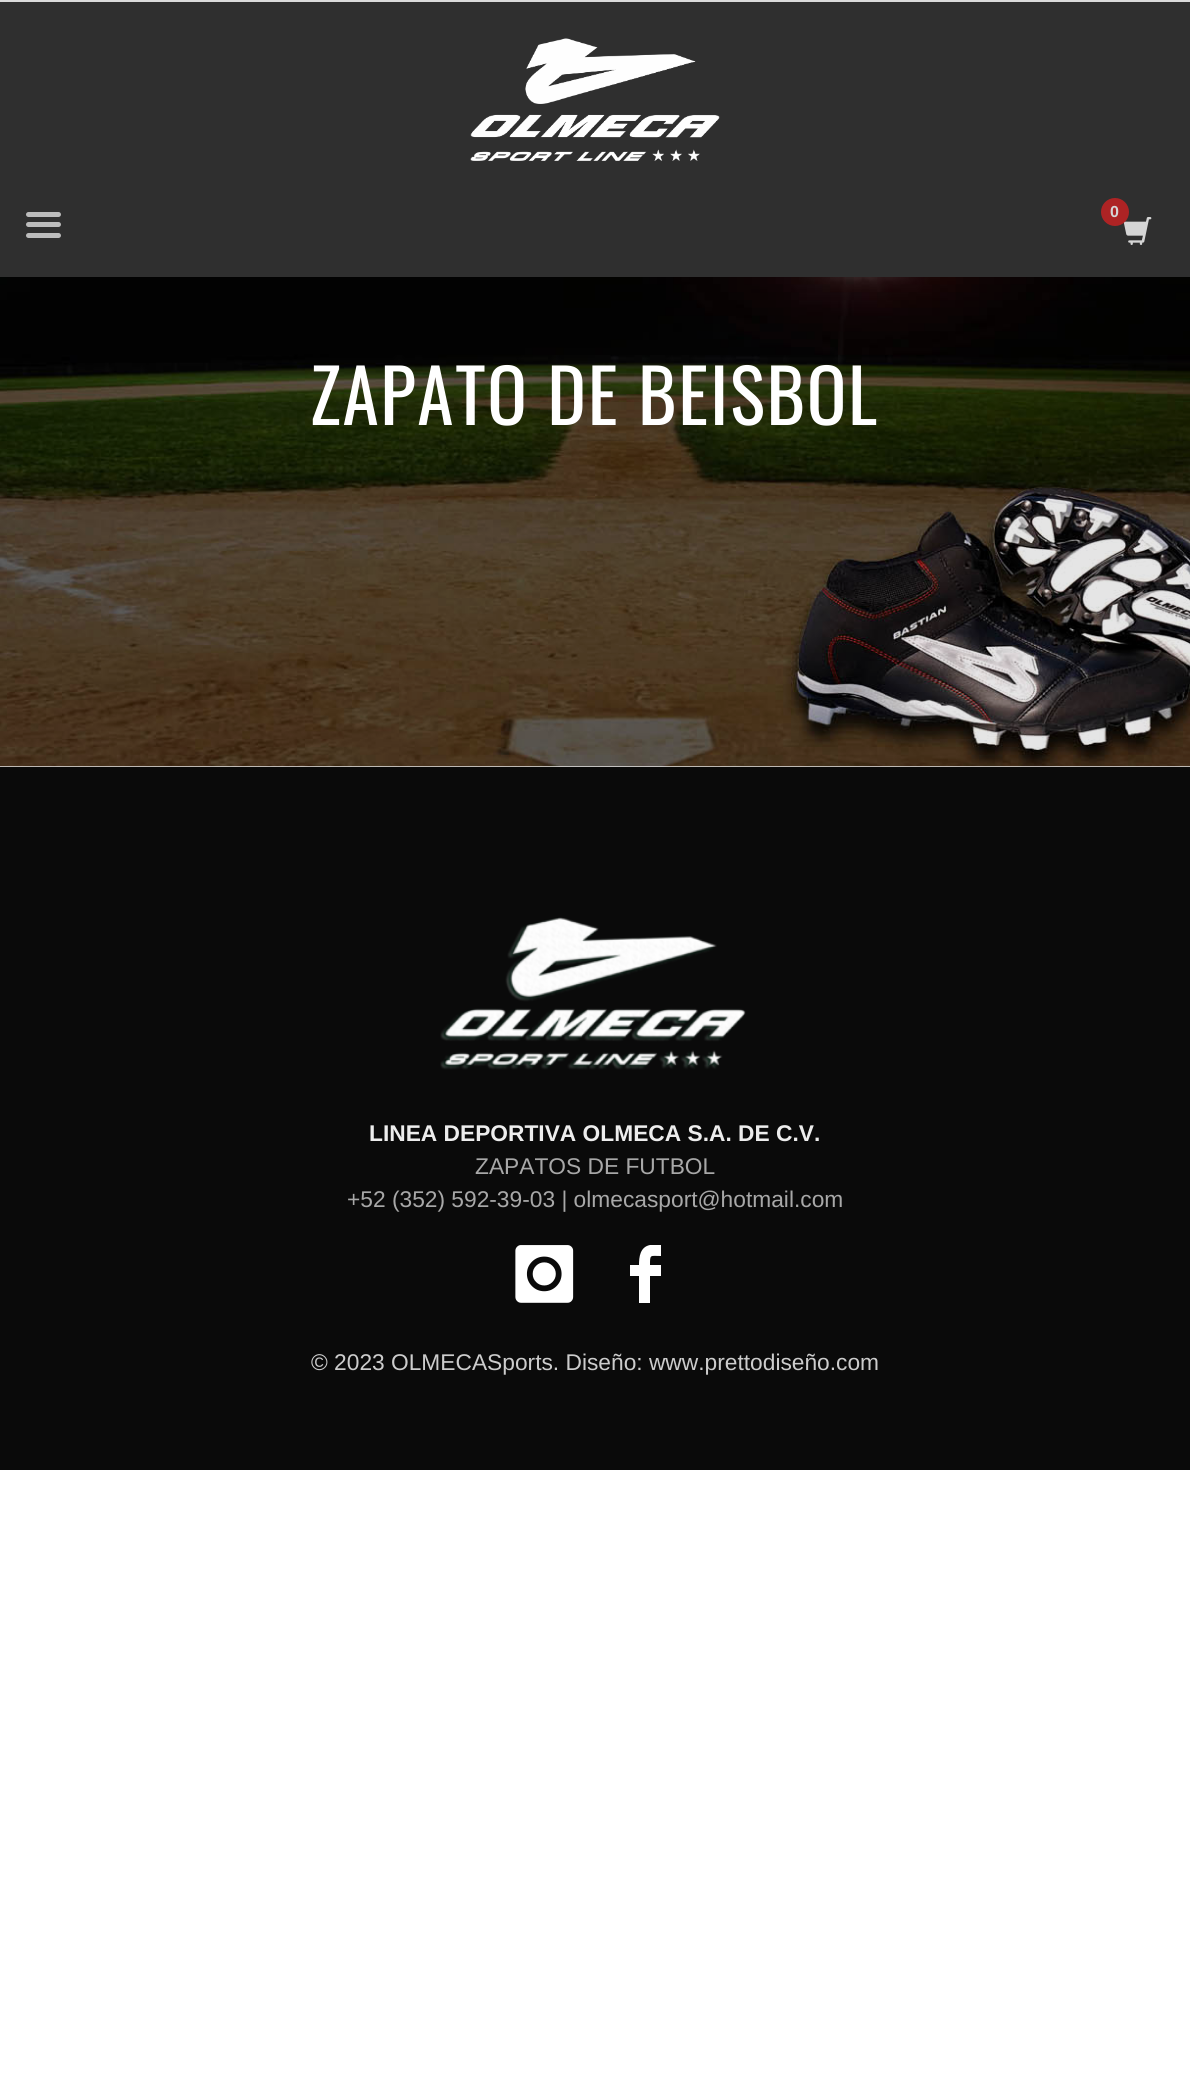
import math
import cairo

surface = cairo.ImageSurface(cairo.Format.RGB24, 1190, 2100)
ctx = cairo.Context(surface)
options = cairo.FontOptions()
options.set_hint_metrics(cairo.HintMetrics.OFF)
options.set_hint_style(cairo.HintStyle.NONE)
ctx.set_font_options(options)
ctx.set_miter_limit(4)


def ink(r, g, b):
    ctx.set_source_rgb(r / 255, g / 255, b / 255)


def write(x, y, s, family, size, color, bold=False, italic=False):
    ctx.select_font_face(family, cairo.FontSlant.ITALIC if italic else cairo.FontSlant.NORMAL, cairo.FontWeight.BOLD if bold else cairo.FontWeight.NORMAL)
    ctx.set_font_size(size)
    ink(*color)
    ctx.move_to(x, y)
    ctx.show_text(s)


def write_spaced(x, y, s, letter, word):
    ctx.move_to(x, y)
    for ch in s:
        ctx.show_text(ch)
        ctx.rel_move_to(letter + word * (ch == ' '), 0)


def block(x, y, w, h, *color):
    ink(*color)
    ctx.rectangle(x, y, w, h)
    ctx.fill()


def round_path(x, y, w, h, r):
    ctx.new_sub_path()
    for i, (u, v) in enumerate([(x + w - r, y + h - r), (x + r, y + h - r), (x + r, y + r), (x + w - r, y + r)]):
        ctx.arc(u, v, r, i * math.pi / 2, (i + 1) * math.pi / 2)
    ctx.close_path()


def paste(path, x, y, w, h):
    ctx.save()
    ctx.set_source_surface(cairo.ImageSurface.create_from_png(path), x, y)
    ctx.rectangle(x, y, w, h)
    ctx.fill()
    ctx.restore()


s1 = dict(family="Liberation Sans", size=16, color=(213, 213, 213), bold=True)
s2 = dict(family="Liberation Sans", size=22.75, color=(237, 237, 237), bold=True)
s3 = dict(family="Liberation Sans", size=22.75, color=(168, 168, 168))
s4 = dict(family="Liberation Sans", size=22.75, color=(204, 204, 204))

ink(255, 255, 255)
ctx.paint()
block(0, 766, 1190, 1, 230, 230, 230)
block(0, 2, 1190, 275, 47, 47, 47)
block(0, 0, 1190, 2, 219, 219, 219)
paste("pic1.png", 470, 38, 250, 123)
ink(188, 188, 188)
round_path(26, 212, 35, 5, 2.5)
ctx.fill()
round_path(26, 222, 35, 5, 2.5)
ctx.fill()
round_path(26, 233, 35, 5, 2.5)
ctx.fill()
paste("pic2.png", 1123, 217, 29, 28)
ctx.set_source_rgba(0.804, 0.129, 0.133, 0.8)
ctx.arc(1115, 212, 14, 0, 2 * math.pi)
ctx.fill()
write(1110, 217, "0", **s1)
paste("pic3.png", 0, 277, 1190, 490)
ctx.select_font_face("Oswald")
ctx.set_font_size(73.5)
ink(255, 255, 255)
write_spaced(310, 425, "ZAPATO DE BEISBOL", 1.75, 0)
block(0, 767, 1190, 703, 10, 10, 10)
paste("pic4.png", 440, 917, 306, 153)
write(369, 1141, "LINEA DEPORTIVA OLMECA S.A. DE C.V.", **s2)
write(475, 1174, "ZAPATOS DE FUTBOL", **s3)
write(347, 1207, "+52 (352) 592-39-03 | olmecasport@hotmail.com", **s3)
paste("pic5.png", 515, 1245, 59, 58)
ink(255, 255, 255)
ctx.new_path()
ctx.move_to(630, 1276)
ctx.line_to(630, 1265)
ctx.line_to(639, 1265)
ctx.curve_to(639, 1257, 640, 1247, 650, 1245)
ctx.line_to(661, 1245)
ctx.line_to(661, 1256)
ctx.curve_to(650, 1256, 650, 1254, 650, 1265)
ctx.line_to(661, 1265)
ctx.line_to(661, 1276)
ctx.line_to(650, 1276)
ctx.line_to(650, 1303)
ctx.line_to(639, 1303)
ctx.line_to(639, 1276)
ctx.close_path()
ctx.fill()
write(311, 1370, "© 2023 OLMECASports. Diseño: www.prettodiseño.com", **s4)
surface.write_to_png("screenshot.png")
